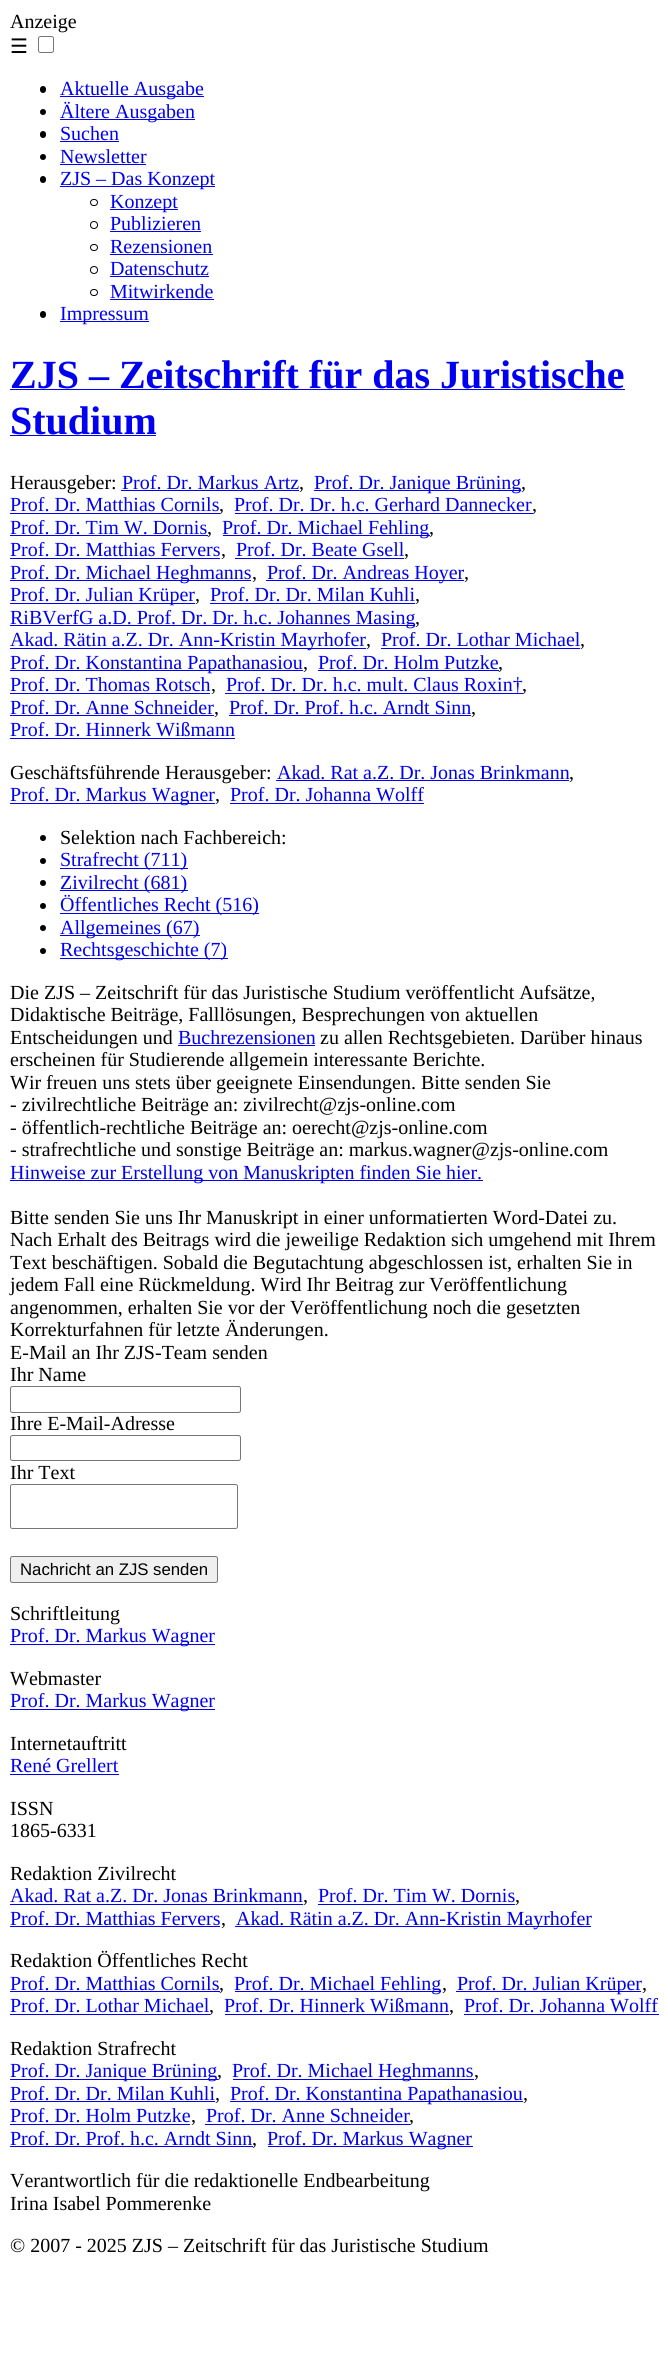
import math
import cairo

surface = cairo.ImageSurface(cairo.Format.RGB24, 668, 2371)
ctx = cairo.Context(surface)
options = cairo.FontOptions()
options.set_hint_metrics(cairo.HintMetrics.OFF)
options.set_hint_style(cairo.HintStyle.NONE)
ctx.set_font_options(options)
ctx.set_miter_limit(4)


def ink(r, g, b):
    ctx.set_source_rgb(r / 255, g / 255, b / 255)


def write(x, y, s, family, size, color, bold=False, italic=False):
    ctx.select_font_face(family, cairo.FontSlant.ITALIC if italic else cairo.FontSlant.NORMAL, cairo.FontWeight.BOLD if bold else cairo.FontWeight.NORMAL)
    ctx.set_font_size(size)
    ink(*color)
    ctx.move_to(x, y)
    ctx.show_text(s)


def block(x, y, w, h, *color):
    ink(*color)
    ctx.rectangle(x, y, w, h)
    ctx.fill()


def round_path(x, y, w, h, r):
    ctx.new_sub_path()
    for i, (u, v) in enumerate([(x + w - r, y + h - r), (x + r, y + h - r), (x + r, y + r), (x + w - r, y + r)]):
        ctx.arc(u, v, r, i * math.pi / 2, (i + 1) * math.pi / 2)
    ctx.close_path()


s1 = dict(family="Liberation Serif", size=20, color=(0, 0, 0))
s2 = dict(family="DejaVu Sans", size=20, color=(0, 0, 0))
s3 = dict(family="Liberation Serif", size=20, color=(0, 0, 238))
s4 = dict(family="Liberation Serif", size=40, color=(0, 0, 238), bold=True)
s5 = dict(family="Liberation Sans", size=16.75, color=(0, 0, 0))

ink(255, 255, 255)
ctx.paint()
write(10, 28, "Anzeige", **s1)
write(10, 53, "☰", **s2)
round_path(38.5, 36.5, 15, 16, 2)
ink(118, 118, 118)
ctx.set_line_width(1)
ctx.stroke()
ink(0, 0, 0)
round_path(40, 86, 6, 7, 3)
ctx.fill()
block(60, 96, 144, 1, 0, 0, 238)
write(60, 95, "Aktuelle Ausgabe", **s3)
ink(0, 0, 0)
ctx.new_path()
ctx.arc(43, 112, 3, 0, 2 * math.pi)
ctx.fill()
block(60, 119, 135, 1, 0, 0, 238)
write(60, 118, "Ältere Ausgaben", **s3)
ink(0, 0, 0)
round_path(40, 131, 6, 7, 3)
ctx.fill()
write(60, 140, "Suchen", **s3)
block(60, 141, 59, 1, 0, 0, 238)
ink(0, 0, 0)
ctx.new_path()
ctx.arc(43, 157, 3, 0, 2 * math.pi)
ctx.fill()
write(60, 163, "Newsletter", **s3)
block(60, 164, 86, 1, 0, 0, 238)
ink(0, 0, 0)
round_path(40, 176, 6, 7, 3)
ctx.fill()
block(60, 186, 155, 1, 0, 0, 238)
write(60, 185, "ZJS – Das Konzept", **s3)
round_path(90.5, 199.5, 7, 6, 3)
ink(0, 0, 0)
ctx.stroke()
block(110, 209, 68, 1, 0, 0, 238)
write(110, 208, "Konzept", **s3)
ctx.new_path()
ctx.arc(94, 225, 3.5, 0, 2 * math.pi)
ink(0, 0, 0)
ctx.stroke()
write(110, 230, "Publizieren", **s3)
block(110, 231, 91, 1, 0, 0, 238)
round_path(90.5, 244.5, 7, 6, 3)
ink(0, 0, 0)
ctx.stroke()
write(110, 253, "Rezensionen", **s3)
block(110, 254, 103, 1, 0, 0, 238)
ctx.new_path()
ctx.arc(94, 270, 3.5, 0, 2 * math.pi)
ink(0, 0, 0)
ctx.stroke()
write(110, 275, "Datenschutz", **s3)
block(110, 276, 99, 1, 0, 0, 238)
round_path(90.5, 289.5, 7, 6, 3)
ink(0, 0, 0)
ctx.stroke()
write(110, 298, "Mitwirkende", **s3)
block(110, 299, 104, 1, 0, 0, 238)
ink(0, 0, 0)
round_path(40, 311, 6, 7, 3)
ctx.fill()
block(60, 321, 89, 1, 0, 0, 238)
write(60, 320, "Impressum", **s3)
write(10, 388, "ZJS – Zeitschrift für das Juristische", **s4)
block(10, 389, 615, 1, 0, 0, 238)
write(10, 434, "Studium", **s4)
block(10, 435, 146, 1, 0, 0, 238)
write(10, 489, "Herausgeber:", **s1)
write(122, 489, "Prof. Dr. Markus Artz", **s3)
block(121, 490, 178, 1, 0, 0, 238)
write(299, 489, ",", **s1)
block(314, 490, 207, 1, 0, 0, 238)
write(314, 489, "Prof. Dr. Janique Brüning", **s3)
write(521, 489, ",", **s1)
write(10, 511, "Prof. Dr. Matthias Cornils", **s3)
block(10, 513, 210, 1, 0, 0, 238)
write(219, 511, ",", **s1)
write(234, 511, "Prof. Dr. Dr. h.c. Gerhard Dannecker", **s3)
block(235, 513, 298, 1, 0, 0, 238)
write(532, 511, ",", **s1)
write(10, 534, "Prof. Dr. Tim W. Dornis", **s3)
block(10, 535, 198, 1, 0, 0, 238)
write(207, 534, ",", **s1)
block(223, 535, 207, 1, 0, 0, 238)
write(222, 534, "Prof. Dr. Michael Fehling", **s3)
write(429, 534, ",", **s1)
write(10, 556, "Prof. Dr. Matthias Fervers", **s3)
block(10, 558, 210, 1, 0, 0, 238)
write(221, 556, ",", **s1)
write(236, 556, "Prof. Dr. Beate Gsell", **s3)
block(235, 558, 169, 1, 0, 0, 238)
write(404, 556, ",", **s1)
block(10, 580, 241, 1, 0, 0, 238)
write(10, 579, "Prof. Dr. Michael Heghmanns", **s3)
write(252, 579, ",", **s1)
block(266, 580, 198, 1, 0, 0, 238)
write(267, 579, "Prof. Dr. Andreas Hoyer", **s3)
write(464, 579, ",", **s1)
block(10, 603, 185, 1, 0, 0, 238)
write(10, 601, "Prof. Dr. Julian Krüper", **s3)
write(195, 601, ",", **s1)
write(210, 601, "Prof. Dr. Dr. Milan Kuhli", **s3)
block(210, 603, 205, 1, 0, 0, 238)
write(415, 601, ",", **s1)
block(10, 625, 405, 1, 0, 0, 238)
write(10, 624, "RiBVerfG a.D. Prof. Dr. Dr. h.c. Johannes Masing", **s3)
write(415, 624, ",", **s1)
block(10, 648, 356, 1, 0, 0, 238)
write(10, 646, "Akad. Rätin a.Z. Dr. Ann-Kristin Mayrhofer", **s3)
write(366, 646, ",", **s1)
write(381, 646, "Prof. Dr. Lothar Michael", **s3)
block(381, 648, 199, 1, 0, 0, 238)
write(580, 646, ",", **s1)
block(10, 670, 293, 1, 0, 0, 238)
write(10, 669, "Prof. Dr. Konstantina Papathanasiou", **s3)
write(303, 669, ",", **s1)
write(318, 669, "Prof. Dr. Holm Putzke", **s3)
block(318, 670, 181, 1, 0, 0, 238)
write(498, 669, ",", **s1)
write(10, 691, "Prof. Dr. Thomas Rotsch", **s3)
block(10, 693, 200, 1, 0, 0, 238)
write(211, 691, ",", **s1)
block(225, 693, 298, 1, 0, 0, 238)
write(226, 691, "Prof. Dr. Dr. h.c. mult. Claus Roxin†", **s3)
write(522, 691, ",", **s1)
write(10, 714, "Prof. Dr. Anne Schneider", **s3)
block(10, 715, 204, 1, 0, 0, 238)
write(214, 714, ",", **s1)
write(229, 714, "Prof. Dr. Prof. h.c. Arndt Sinn", **s3)
block(229, 715, 242, 1, 0, 0, 238)
write(471, 714, ",", **s1)
write(10, 736, "Prof. Dr. Hinnerk Wißmann", **s3)
block(10, 738, 225, 1, 0, 0, 238)
write(10, 779, "Geschäftsführende Herausgeber:", **s1)
write(277, 779, "Akad. Rat a.Z. Dr. Jonas Brinkmann", **s3)
block(276, 780, 293, 1, 0, 0, 238)
write(569, 779, ",", **s1)
block(10, 803, 205, 1, 0, 0, 238)
write(10, 801, "Prof. Dr. Markus Wagner", **s3)
write(215, 801, ",", **s1)
write(230, 801, "Prof. Dr. Johanna Wolff", **s3)
block(230, 803, 194, 1, 0, 0, 238)
ink(0, 0, 0)
ctx.new_path()
ctx.arc(43, 838, 3, 0, 2 * math.pi)
ctx.fill()
write(60, 844, "Selektion nach Fachbereich:", **s1)
ctx.new_path()
ctx.arc(43, 861, 3, 0, 2 * math.pi)
ctx.fill()
block(60, 868, 128, 1, 0, 0, 238)
write(60, 866, "Strafrecht (711)", **s3)
ink(0, 0, 0)
ctx.new_path()
ctx.arc(43, 883, 3, 0, 2 * math.pi)
ctx.fill()
block(60, 890, 128, 1, 0, 0, 238)
write(60, 889, "Zivilrecht (681)", **s3)
ink(0, 0, 0)
ctx.new_path()
ctx.arc(43, 906, 3, 0, 2 * math.pi)
ctx.fill()
block(60, 913, 199, 1, 0, 0, 238)
write(60, 911, "Öffentliches Recht (516)", **s3)
ink(0, 0, 0)
ctx.new_path()
ctx.arc(43, 928, 3, 0, 2 * math.pi)
ctx.fill()
block(60, 935, 140, 1, 0, 0, 238)
write(60, 934, "Allgemeines (67)", **s3)
ink(0, 0, 0)
ctx.new_path()
ctx.arc(43, 951, 3, 0, 2 * math.pi)
ctx.fill()
block(60, 958, 168, 1, 0, 0, 238)
write(60, 956, "Rechtsgeschichte (7)", **s3)
write(10, 999, "Die ZJS – Zeitschrift für das Juristische Studium veröffentlicht Aufsätze,", **s1)
write(10, 1021, "Didaktische Beiträge, Falllösungen, Besprechungen von aktuellen", **s1)
write(10, 1044, "Entscheidungen und", **s1)
write(178, 1044, "Buchrezensionen", **s3)
block(178, 1045, 137, 1, 0, 0, 238)
write(320, 1044, "zu allen Rechtsgebieten. Darüber hinaus", **s1)
write(10, 1066, "erscheinen für Studierende allgemein interessante Berichte.", **s1)
write(10, 1089, "Wir freuen uns stets über geeignete Einsendungen. Bitte senden Sie", **s1)
write(10, 1111, "- zivilrechtliche Beiträge an: zivilrecht@zjs-online.com", **s1)
write(10, 1134, "- öffentlich-rechtliche Beiträge an: oerecht@zjs-online.com", **s1)
write(10, 1156, "- strafrechtliche und sonstige Beiträge an: markus.wagner@zjs-online.com", **s1)
block(10, 1180, 473, 1, 0, 0, 238)
write(10, 1179, "Hinweise zur Erstellung von Manuskripten finden Sie hier.", **s3)
write(10, 1224, "Bitte senden Sie uns Ihr Manuskript in einer unformatierten Word-Datei zu.", **s1)
write(10, 1246, "Nach Erhalt des Beitrags wird die jeweilige Redaktion sich umgehend mit Ihrem", **s1)
write(10, 1269, "Text beschäftigen. Sobald die Begutachtung abgeschlossen ist, erhalten Sie in", **s1)
write(10, 1291, "jedem Fall eine Rückmeldung. Wird Ihr Beitrag zur Veröffentlichung", **s1)
write(10, 1314, "angenommen, erhalten Sie vor der Veröffentlichung noch die gesetzten", **s1)
write(10, 1336, "Korrekturfahnen für letzte Änderungen.", **s1)
write(10, 1359, "E-Mail an Ihr ZJS-Team senden", **s1)
write(10, 1381, "Ihr Name", **s1)
round_path(10.5, 1386.5, 230, 26, 2)
ink(118, 118, 118)
ctx.stroke()
write(10, 1430, "Ihre E-Mail-Adresse", **s1)
round_path(10.5, 1435.5, 230, 25, 2)
ink(118, 118, 118)
ctx.stroke()
write(10, 1479, "Ihr Text", **s1)
round_path(10.5, 1484.5, 227, 44, 2)
ink(118, 118, 118)
ctx.stroke()
ink(239, 239, 239)
round_path(10.5, 1556.5, 207, 26, 2)
ctx.fill_preserve()
ink(118, 118, 118)
ctx.stroke()
write(20, 1575, "Nachricht an ZJS senden", **s5)
write(10, 1620, "Schriftleitung", **s1)
block(10, 1644, 205, 1, 0, 0, 238)
write(10, 1642, "Prof. Dr. Markus Wagner", **s3)
write(10, 1685, "Webmaster", **s1)
block(10, 1709, 205, 1, 0, 0, 238)
write(10, 1707, "Prof. Dr. Markus Wagner", **s3)
write(10, 1750, "Internetauftritt", **s1)
write(10, 1772, "René Grellert", **s3)
block(10, 1774, 109, 1, 0, 0, 238)
write(10, 1815, "ISSN", **s1)
write(10, 1837, "1865-6331", **s1)
write(10, 1880, "Redaktion Zivilrecht", **s1)
write(10, 1902, "Akad. Rat a.Z. Dr. Jonas Brinkmann", **s3)
block(10, 1904, 293, 1, 0, 0, 238)
write(303, 1902, ",", **s1)
write(318, 1902, "Prof. Dr. Tim W. Dornis", **s3)
block(318, 1904, 197, 1, 0, 0, 238)
write(515, 1902, ",", **s1)
write(10, 1925, "Prof. Dr. Matthias Fervers", **s3)
block(10, 1926, 210, 1, 0, 0, 238)
write(221, 1925, ",", **s1)
block(235, 1926, 356, 1, 0, 0, 238)
write(236, 1925, "Akad. Rätin a.Z. Dr. Ann-Kristin Mayrhofer", **s3)
write(10, 1967, "Redaktion Öffentliches Recht", **s1)
write(10, 1990, "Prof. Dr. Matthias Cornils", **s3)
block(10, 1991, 210, 1, 0, 0, 238)
write(219, 1990, ",", **s1)
block(235, 1991, 206, 1, 0, 0, 238)
write(234, 1990, "Prof. Dr. Michael Fehling", **s3)
write(442, 1990, ",", **s1)
block(456, 1991, 185, 1, 0, 0, 238)
write(457, 1990, "Prof. Dr. Julian Krüper", **s3)
write(642, 1990, ",", **s1)
write(10, 2012, "Prof. Dr. Lothar Michael", **s3)
block(10, 2014, 200, 1, 0, 0, 238)
write(209, 2012, ",", **s1)
write(224, 2012, "Prof. Dr. Hinnerk Wißmann", **s3)
block(225, 2014, 224, 1, 0, 0, 238)
write(449, 2012, ",", **s1)
write(464, 2012, "Prof. Dr. Johanna Wolff", **s3)
block(464, 2014, 195, 1, 0, 0, 238)
write(10, 2055, "Redaktion Strafrecht", **s1)
block(10, 2079, 208, 1, 0, 0, 238)
write(10, 2077, "Prof. Dr. Janique Brüning", **s3)
write(217, 2077, ",", **s1)
block(233, 2079, 241, 1, 0, 0, 238)
write(232, 2077, "Prof. Dr. Michael Heghmanns", **s3)
write(474, 2077, ",", **s1)
write(10, 2100, "Prof. Dr. Dr. Milan Kuhli", **s3)
block(10, 2101, 205, 1, 0, 0, 238)
write(215, 2100, ",", **s1)
block(230, 2101, 293, 1, 0, 0, 238)
write(230, 2100, "Prof. Dr. Konstantina Papathanasiou", **s3)
write(523, 2100, ",", **s1)
write(10, 2122, "Prof. Dr. Holm Putzke", **s3)
block(10, 2124, 180, 1, 0, 0, 238)
write(191, 2122, ",", **s1)
write(206, 2122, "Prof. Dr. Anne Schneider", **s3)
block(205, 2124, 205, 1, 0, 0, 238)
write(409, 2122, ",", **s1)
write(10, 2145, "Prof. Dr. Prof. h.c. Arndt Sinn", **s3)
block(10, 2146, 243, 1, 0, 0, 238)
write(252, 2145, ",", **s1)
block(268, 2146, 205, 1, 0, 0, 238)
write(267, 2145, "Prof. Dr. Markus Wagner", **s3)
write(10, 2187, "Verantwortlich für die redaktionelle Endbearbeitung", **s1)
write(10, 2210, "Irina Isabel Pommerenke", **s1)
write(10, 2252, "© 2007 - 2025 ZJS – Zeitschrift für das Juristische Studium", **s1)
surface.write_to_png("screenshot.png")
